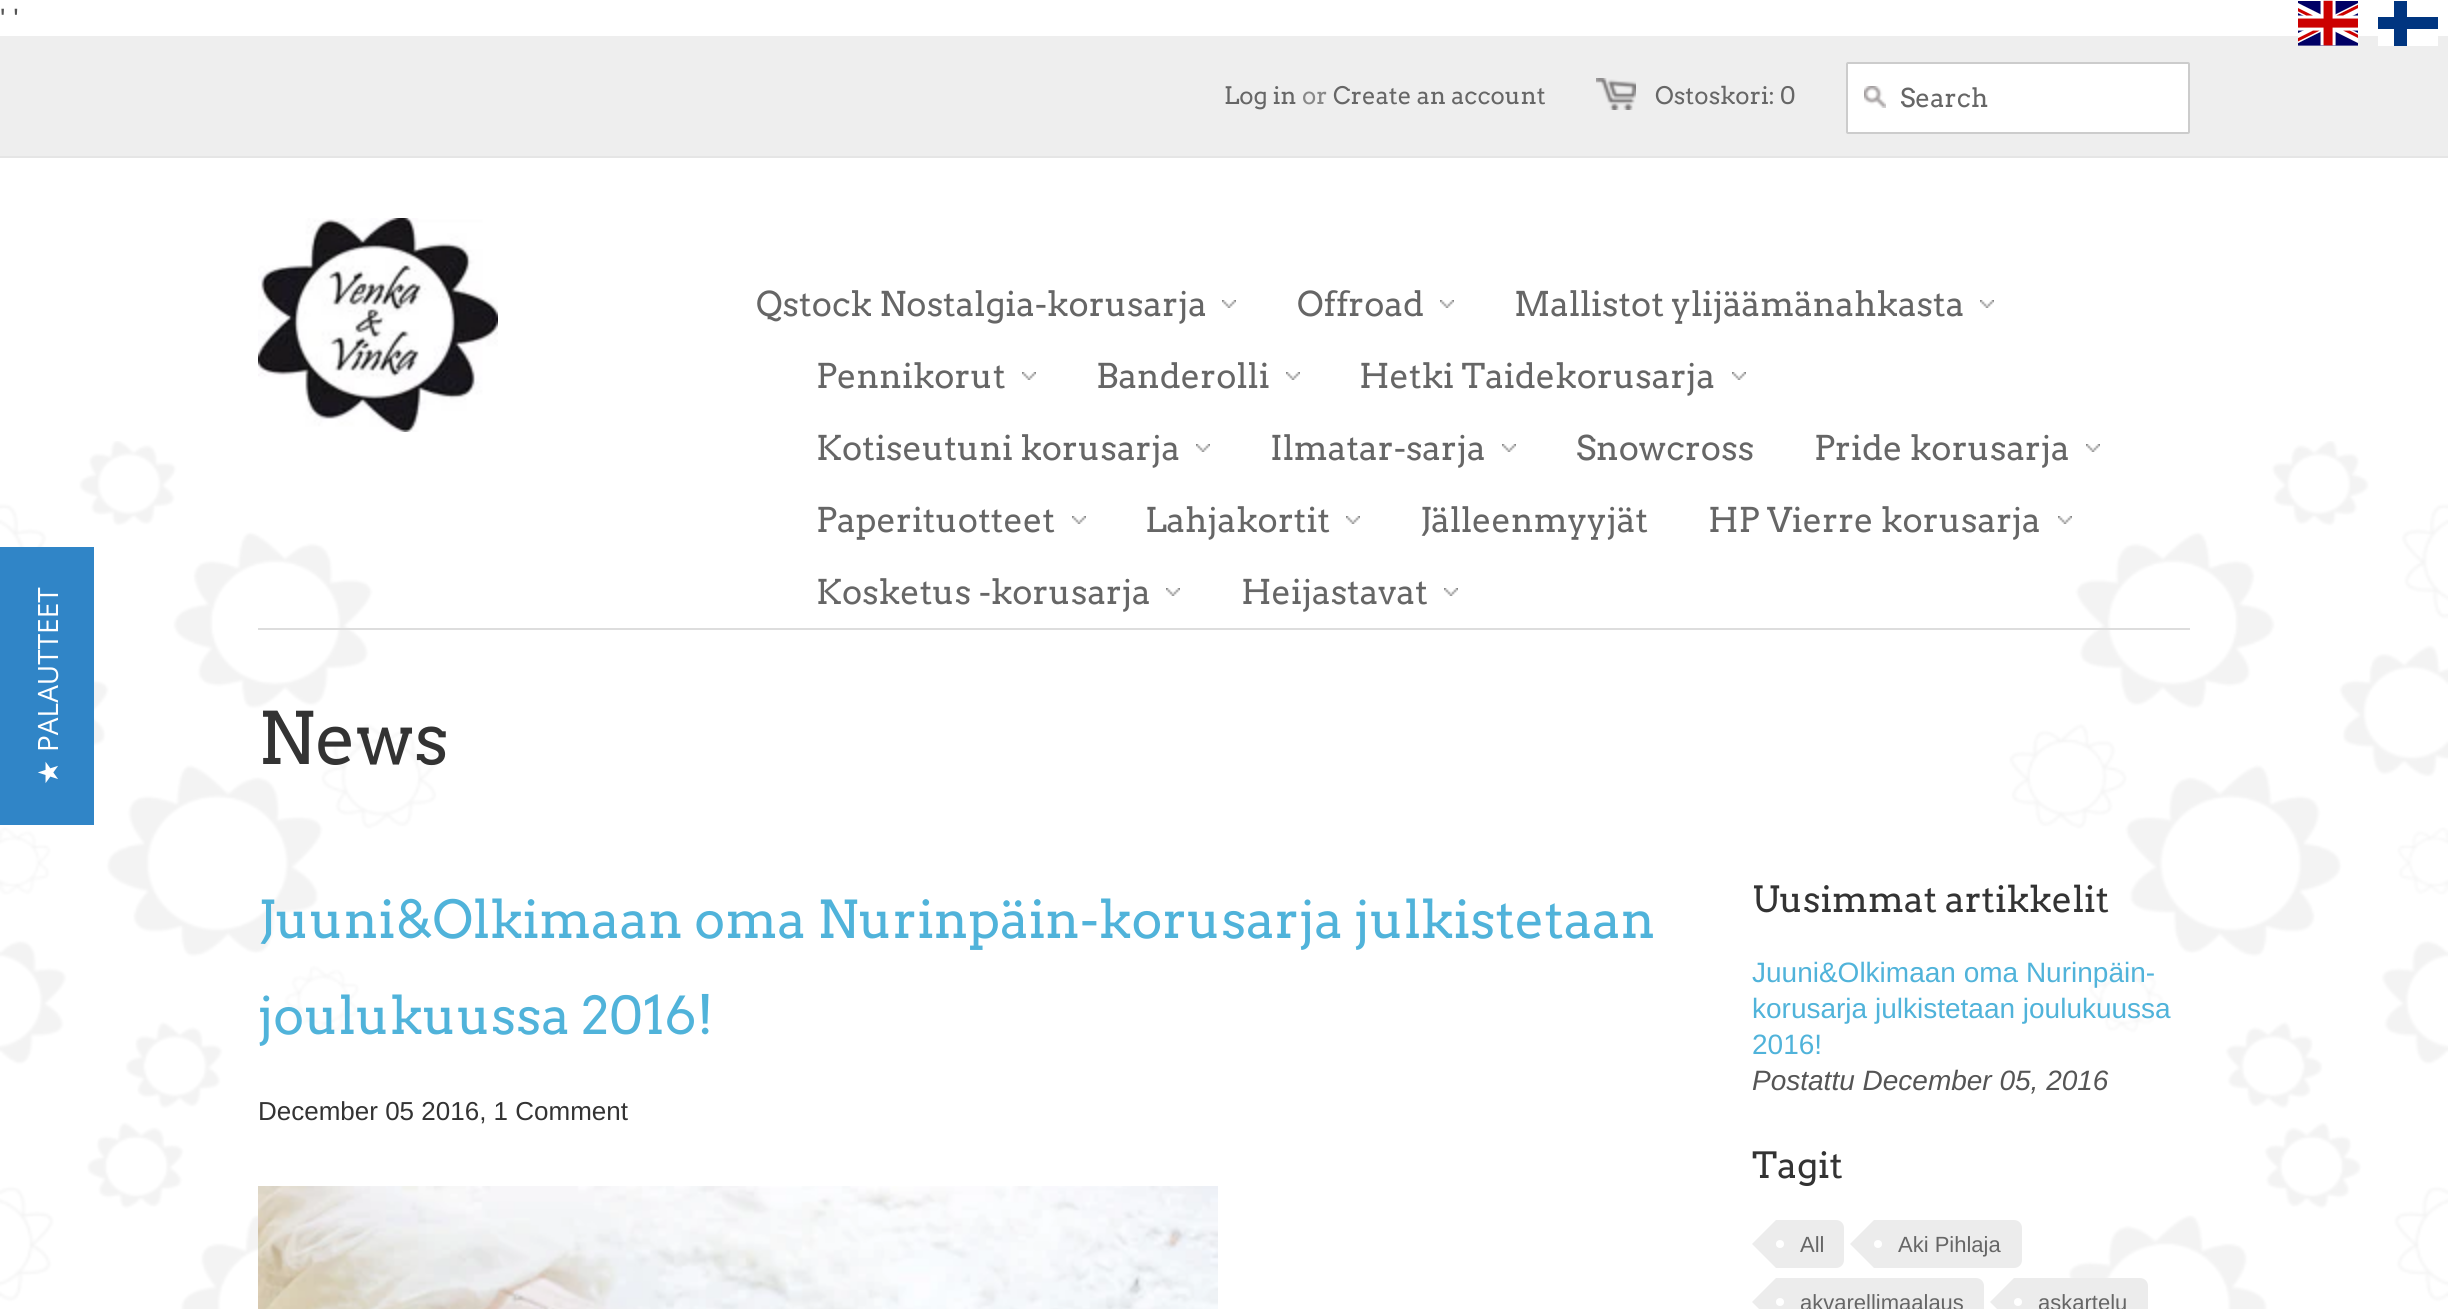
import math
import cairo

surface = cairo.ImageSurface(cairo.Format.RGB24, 2448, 1309)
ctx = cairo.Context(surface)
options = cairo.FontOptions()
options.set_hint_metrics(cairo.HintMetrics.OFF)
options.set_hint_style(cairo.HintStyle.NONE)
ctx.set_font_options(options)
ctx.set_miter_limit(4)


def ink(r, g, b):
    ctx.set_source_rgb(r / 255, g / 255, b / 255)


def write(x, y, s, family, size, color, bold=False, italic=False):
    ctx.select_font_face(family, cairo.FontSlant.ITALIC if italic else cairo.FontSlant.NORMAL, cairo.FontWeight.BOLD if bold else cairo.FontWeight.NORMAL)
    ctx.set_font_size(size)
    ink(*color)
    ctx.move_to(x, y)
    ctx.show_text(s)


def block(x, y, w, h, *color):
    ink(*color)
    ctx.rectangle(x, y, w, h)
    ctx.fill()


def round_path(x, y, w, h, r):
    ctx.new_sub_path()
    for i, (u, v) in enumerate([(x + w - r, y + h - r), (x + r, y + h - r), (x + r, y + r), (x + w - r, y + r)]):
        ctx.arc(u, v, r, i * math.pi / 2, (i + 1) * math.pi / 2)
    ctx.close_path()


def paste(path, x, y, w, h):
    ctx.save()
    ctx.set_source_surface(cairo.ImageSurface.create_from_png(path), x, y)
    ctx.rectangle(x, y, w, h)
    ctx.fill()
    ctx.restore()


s1 = dict(family="Liberation Sans", size=28, color=(85, 85, 85))
s2 = dict(family="Arvo", size=24, color=(102, 102, 102))
s3 = dict(family="Arvo", size=24, color=(136, 136, 136))
s4 = dict(family="Arvo", size=26, color=(102, 102, 102))
s5 = dict(family="Open Sans", size=28, color=(255, 255, 255))
s6 = dict(family="DejaVu Sans", size=28, color=(255, 255, 255))
s7 = dict(family="Arvo", size=34, color=(102, 102, 102))
s8 = dict(family="Arvo", size=72, color=(51, 51, 51))
s9 = dict(family="Arvo", size=52, color=(80, 179, 218))
s10 = dict(family="Liberation Sans", size=26, color=(51, 51, 51))
s11 = dict(family="Arvo", size=36, color=(51, 51, 51))
s12 = dict(family="Liberation Sans", size=28, color=(80, 179, 218))
s13 = dict(family="Liberation Sans", size=28, color=(85, 85, 85), italic=True)
s14 = dict(family="Liberation Sans", size=22, color=(102, 102, 102))

ink(255, 255, 255)
ctx.paint()
paste("pic1.png", 0, 441, 2448, 868)
write(0, 28, "' '", **s1)
block(0, 36, 2448, 120, 238, 238, 238)
paste("pic2.png", 2298, 0, 60, 46)
block(2378, 17, 60, 12, 0, 53, 128)
block(2378, 36, 60, 10, 255, 255, 255)
block(2394, 1, 13, 45, 0, 53, 128)
block(0, 156, 2448, 2, 229, 229, 229)
write(1224, 104, "Log in", **s2)
write(1302, 104, "or", **s3)
write(1333, 104, "Create an account", **s2)
paste("pic3.png", 1596, 78, 40, 32)
write(1655, 104, "Ostoskori: 0", **s2)
ink(255, 255, 255)
round_path(1847, 63, 342, 70, 1)
ctx.fill_preserve()
ink(204, 204, 204)
ctx.stroke()
paste("pic4.png", 1864, 86, 22, 22)
write(1900, 107, "Search", **s4)
block(0, 547, 94, 278, 48, 133, 199)
ctx.save()
ctx.translate(58, 752)
ctx.rotate(-90 * math.pi / 180)
write(0, 0, "PALAUTTEET", **s5)
ctx.restore()
ctx.save()
ctx.translate(58, 785)
ctx.rotate(-90 * math.pi / 180)
write(0, 0, "★", **s6)
ctx.restore()
block(258, 628, 1932, 2, 221, 221, 221)
paste("pic5.png", 258, 218, 240, 214)
paste("pic6.png", 1222, 300, 14, 8)
write(756, 316, "Qstock Nostalgia-korusarja", **s7)
paste("pic6.png", 1440, 300, 14, 8)
write(1297, 316, "Offroad", **s7)
paste("pic6.png", 1980, 300, 14, 8)
write(1514, 316, "Mallistot ylijäämänahkasta", **s7)
paste("pic6.png", 1022, 372, 14, 8)
write(816, 388, "Pennikorut", **s7)
paste("pic6.png", 1286, 372, 14, 8)
write(1096, 388, "Banderolli", **s7)
paste("pic6.png", 1732, 372, 14, 8)
write(1359, 388, "Hetki Taidekorusarja", **s7)
paste("pic6.png", 1196, 444, 14, 8)
write(816, 460, "Kotiseutuni korusarja", **s7)
paste("pic6.png", 1502, 444, 14, 8)
write(1270, 460, "Ilmatar-sarja", **s7)
write(1576, 460, "Snowcross", **s7)
paste("pic6.png", 2086, 444, 14, 8)
write(1814, 460, "Pride korusarja", **s7)
paste("pic6.png", 1072, 516, 14, 8)
write(816, 532, "Paperituotteet", **s7)
paste("pic6.png", 1346, 516, 14, 8)
write(1145, 532, "Lahjakortit", **s7)
write(1420, 532, "Jälleenmyyjät", **s7)
paste("pic6.png", 2058, 516, 14, 8)
write(1708, 532, "HP Vierre korusarja", **s7)
paste("pic6.png", 1166, 588, 14, 8)
write(816, 604, "Kosketus -korusarja", **s7)
paste("pic6.png", 1444, 588, 14, 8)
write(1241, 604, "Heijastavat", **s7)
write(258, 764, "News", **s8)
write(258, 938, "Juuni&Olkimaan oma Nurinpäin-korusarja julkistetaan", **s9)
write(258, 1034, "joulukuussa 2016!", **s9)
write(258, 1120, "December 05 2016, 1 Comment", **s10)
paste("pic7.png", 258, 1186, 960, 123)
write(1752, 912, "Uusimmat artikkelit", **s11)
write(1752, 982, "Juuni&Olkimaan oma Nurinpäin-", **s12)
write(1752, 1018, "korusarja julkistetaan joulukuussa", **s12)
write(1752, 1054, "2016!", **s12)
write(1752, 1090, "Postattu December 05, 2016", **s13)
write(1752, 1178, "Tagit", **s11)
ink(236, 236, 236)
ctx.new_path()
ctx.move_to(1776, 1220)
ctx.line_to(1836, 1220)
ctx.curve_to(1840.5, 1220, 1844, 1223.5, 1844, 1228)
ctx.line_to(1844, 1260)
ctx.curve_to(1844, 1264.5, 1840.5, 1268, 1836, 1268)
ctx.line_to(1776, 1268)
ctx.close_path()
ctx.fill()
ctx.new_path()
ctx.move_to(1776, 1220)
ctx.line_to(1776, 1268)
ctx.line_to(1752, 1244)
ctx.close_path()
ctx.fill()
ink(255, 255, 255)
ctx.arc(1780, 1244, 4, 0, 2 * math.pi)
ctx.fill()
write(1800, 1252, "All", **s14)
ink(236, 236, 236)
ctx.new_path()
ctx.move_to(1874, 1220)
ctx.line_to(2014, 1220)
ctx.curve_to(2018.5, 1220, 2022, 1223.5, 2022, 1228)
ctx.line_to(2022, 1260)
ctx.curve_to(2022, 1264.5, 2018.5, 1268, 2014, 1268)
ctx.line_to(1874, 1268)
ctx.close_path()
ctx.fill()
ctx.new_path()
ctx.move_to(1874, 1220)
ctx.line_to(1874, 1268)
ctx.line_to(1850, 1244)
ctx.close_path()
ctx.fill()
ink(255, 255, 255)
ctx.arc(1878, 1244, 4, 0, 2 * math.pi)
ctx.fill()
write(1898, 1252, "Aki Pihlaja", **s14)
ink(236, 236, 236)
ctx.new_path()
ctx.move_to(1776, 1278)
ctx.line_to(1976, 1278)
ctx.curve_to(1980.5, 1278, 1984, 1281.5, 1984, 1286)
ctx.line_to(1984, 1309)
ctx.curve_to(1984, 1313.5, 1980.5, 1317, 1976, 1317)
ctx.line_to(1776, 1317)
ctx.close_path()
ctx.fill()
ctx.new_path()
ctx.move_to(1776, 1278)
ctx.line_to(1776, 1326)
ctx.line_to(1752, 1302)
ctx.close_path()
ctx.fill()
ink(255, 255, 255)
ctx.arc(1780, 1302, 4, 0, 2 * math.pi)
ctx.fill()
write(1800, 1310, "akvarellimaalaus", **s14)
ink(236, 236, 236)
ctx.new_path()
ctx.move_to(2014, 1278)
ctx.line_to(2140, 1278)
ctx.curve_to(2144.5, 1278, 2148, 1281.5, 2148, 1286)
ctx.line_to(2148, 1309)
ctx.curve_to(2148, 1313.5, 2144.5, 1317, 2140, 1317)
ctx.line_to(2014, 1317)
ctx.close_path()
ctx.fill()
ctx.new_path()
ctx.move_to(2014, 1278)
ctx.line_to(2014, 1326)
ctx.line_to(1990, 1302)
ctx.close_path()
ctx.fill()
ink(255, 255, 255)
ctx.arc(2018, 1302, 4, 0, 2 * math.pi)
ctx.fill()
write(2038, 1310, "askartelu", **s14)
surface.write_to_png("screenshot.png")
